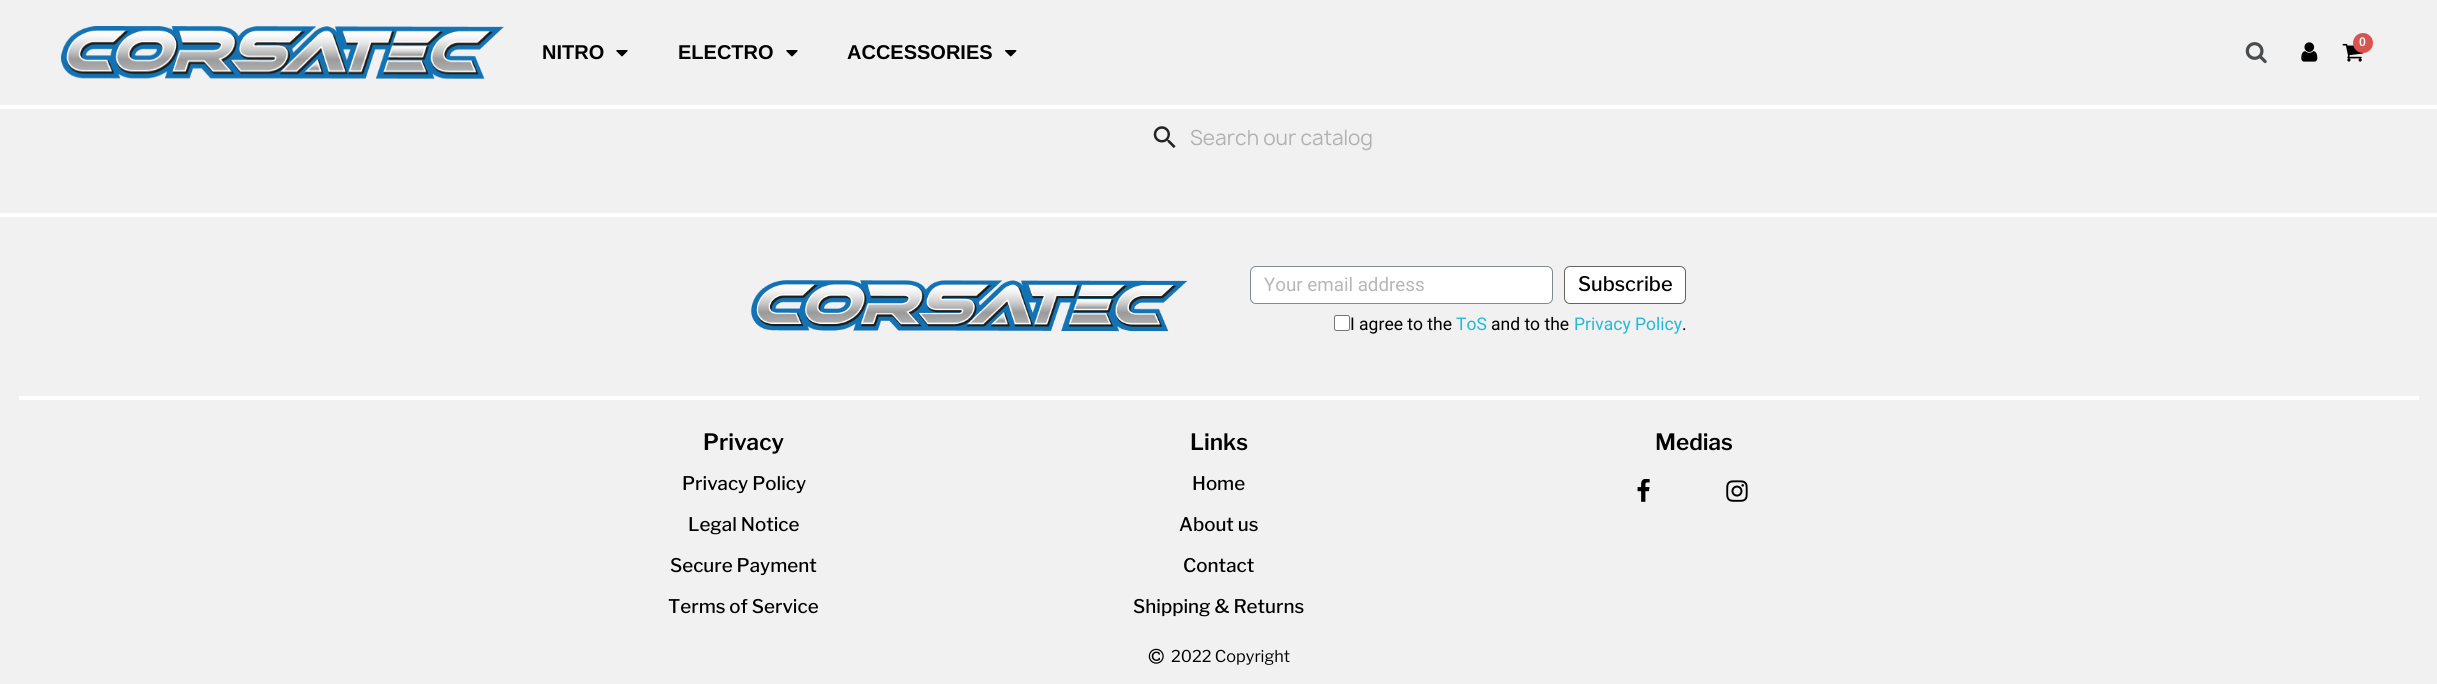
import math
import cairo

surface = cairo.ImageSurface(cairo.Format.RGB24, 2437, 684)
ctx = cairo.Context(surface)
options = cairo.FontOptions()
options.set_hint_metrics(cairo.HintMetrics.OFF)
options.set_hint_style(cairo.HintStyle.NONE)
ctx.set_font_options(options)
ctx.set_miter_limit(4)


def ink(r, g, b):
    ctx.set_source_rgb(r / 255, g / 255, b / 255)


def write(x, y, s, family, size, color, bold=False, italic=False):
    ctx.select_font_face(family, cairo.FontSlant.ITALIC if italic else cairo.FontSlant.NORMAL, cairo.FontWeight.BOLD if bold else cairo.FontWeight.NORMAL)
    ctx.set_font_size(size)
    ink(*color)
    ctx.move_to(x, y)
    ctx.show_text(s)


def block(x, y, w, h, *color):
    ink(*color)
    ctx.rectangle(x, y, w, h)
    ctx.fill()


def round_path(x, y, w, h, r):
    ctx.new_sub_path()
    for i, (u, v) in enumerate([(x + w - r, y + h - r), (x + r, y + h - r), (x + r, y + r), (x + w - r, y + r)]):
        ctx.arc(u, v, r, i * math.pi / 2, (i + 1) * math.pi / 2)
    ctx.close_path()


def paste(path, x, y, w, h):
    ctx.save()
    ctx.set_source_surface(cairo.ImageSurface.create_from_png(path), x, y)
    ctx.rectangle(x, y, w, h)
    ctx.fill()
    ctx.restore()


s1 = dict(family="Roboto SemiBold", size=12, color=(255, 255, 255))
s2 = dict(family="Liberation Sans", size=20, color=(0, 0, 0), bold=True)
s3 = dict(family="Manrope", size=20, color=(177, 177, 177))
s4 = dict(family="Roboto", size=18.75, color=(183, 183, 183))
s5 = dict(family="Libre Franklin Medium", size=20, color=(0, 0, 0))
s6 = dict(family="Roboto", size=17.5, color=(0, 0, 0))
s7 = dict(family="Roboto", size=17.5, color=(36, 185, 215))
s8 = dict(family="Libre Franklin SemiBold", size=22.5, color=(0, 0, 0))
s9 = dict(family="Libre Franklin Medium", size=18.75, color=(0, 0, 0))
s10 = dict(family="Libre Franklin", size=16.25, color=(0, 0, 0))

ink(241, 241, 241)
ctx.paint()
block(0, 105, 2437, 4, 255, 255, 255)
paste("pic1.png", 61, 26, 443, 53)
paste("pic2.png", 2245, 42, 22, 22)
paste("pic3.png", 2301, 42, 17, 20)
paste("pic4.png", 2342, 43, 22, 19)
ink(217, 83, 79)
ctx.arc(2363, 43, 10, 0, 2 * math.pi)
ctx.fill()
write(2359, 46, "0", **s1)
write(542, 59, "NITRO", **s2)
paste("pic5.png", 616, 50, 12, 7)
write(678, 59, "ELECTRO", **s2)
paste("pic5.png", 786, 50, 12, 7)
write(847, 59, "ACCESSORIES", **s2)
paste("pic6.png", 1005, 50, 12, 7)
paste("pic7.png", 1153, 126, 23, 22)
write(1190, 145, "Search our catalog", **s3)
block(0, 213, 2437, 4, 255, 255, 255)
paste("pic8.png", 751, 280, 437, 52)
round_path(1250.5, 266.5, 302, 37, 5.5)
ctx.fill_preserve()
ink(129, 138, 145)
ctx.set_line_width(1)
ctx.stroke()
write(1264, 291, "Your email address", **s4)
ink(255, 255, 255)
round_path(1564.5, 266.5, 121, 37, 5.5)
ctx.fill_preserve()
ink(99, 99, 99)
ctx.stroke()
write(1578, 291, "Subscribe", **s5)
ink(255, 255, 255)
round_path(1334.5, 315.5, 15, 15, 2)
ctx.fill_preserve()
ink(118, 118, 118)
ctx.stroke()
write(1350, 330, "I agree to the", **s6)
write(1456, 330, "ToS", **s7)
write(1491, 330, "and to the", **s6)
write(1574, 330, "Privacy Policy", **s7)
write(1682, 330, ".", **s6)
block(19, 396, 2400, 4, 255, 255, 255)
write(703, 450, "Privacy", **s8)
write(682, 490, "Privacy Policy", **s9)
write(688, 531, "Legal Notice", **s9)
write(670, 572, "Secure Payment", **s9)
write(668, 613, "Terms of Service", **s9)
write(1190, 450, "Links", **s8)
write(1192, 490, "Home", **s9)
write(1179, 531, "About us", **s9)
write(1183, 572, "Contact", **s9)
write(1133, 613, "Shipping & Returns", **s9)
write(1655, 450, "Medias", **s8)
paste("pic9.png", 1637, 479, 13, 23)
paste("pic10.png", 1726, 480, 22, 22)
paste("pic11.png", 1148, 648, 16, 16)
write(1171, 662, "2022 Copyright", **s10)
surface.write_to_png("screenshot.png")
